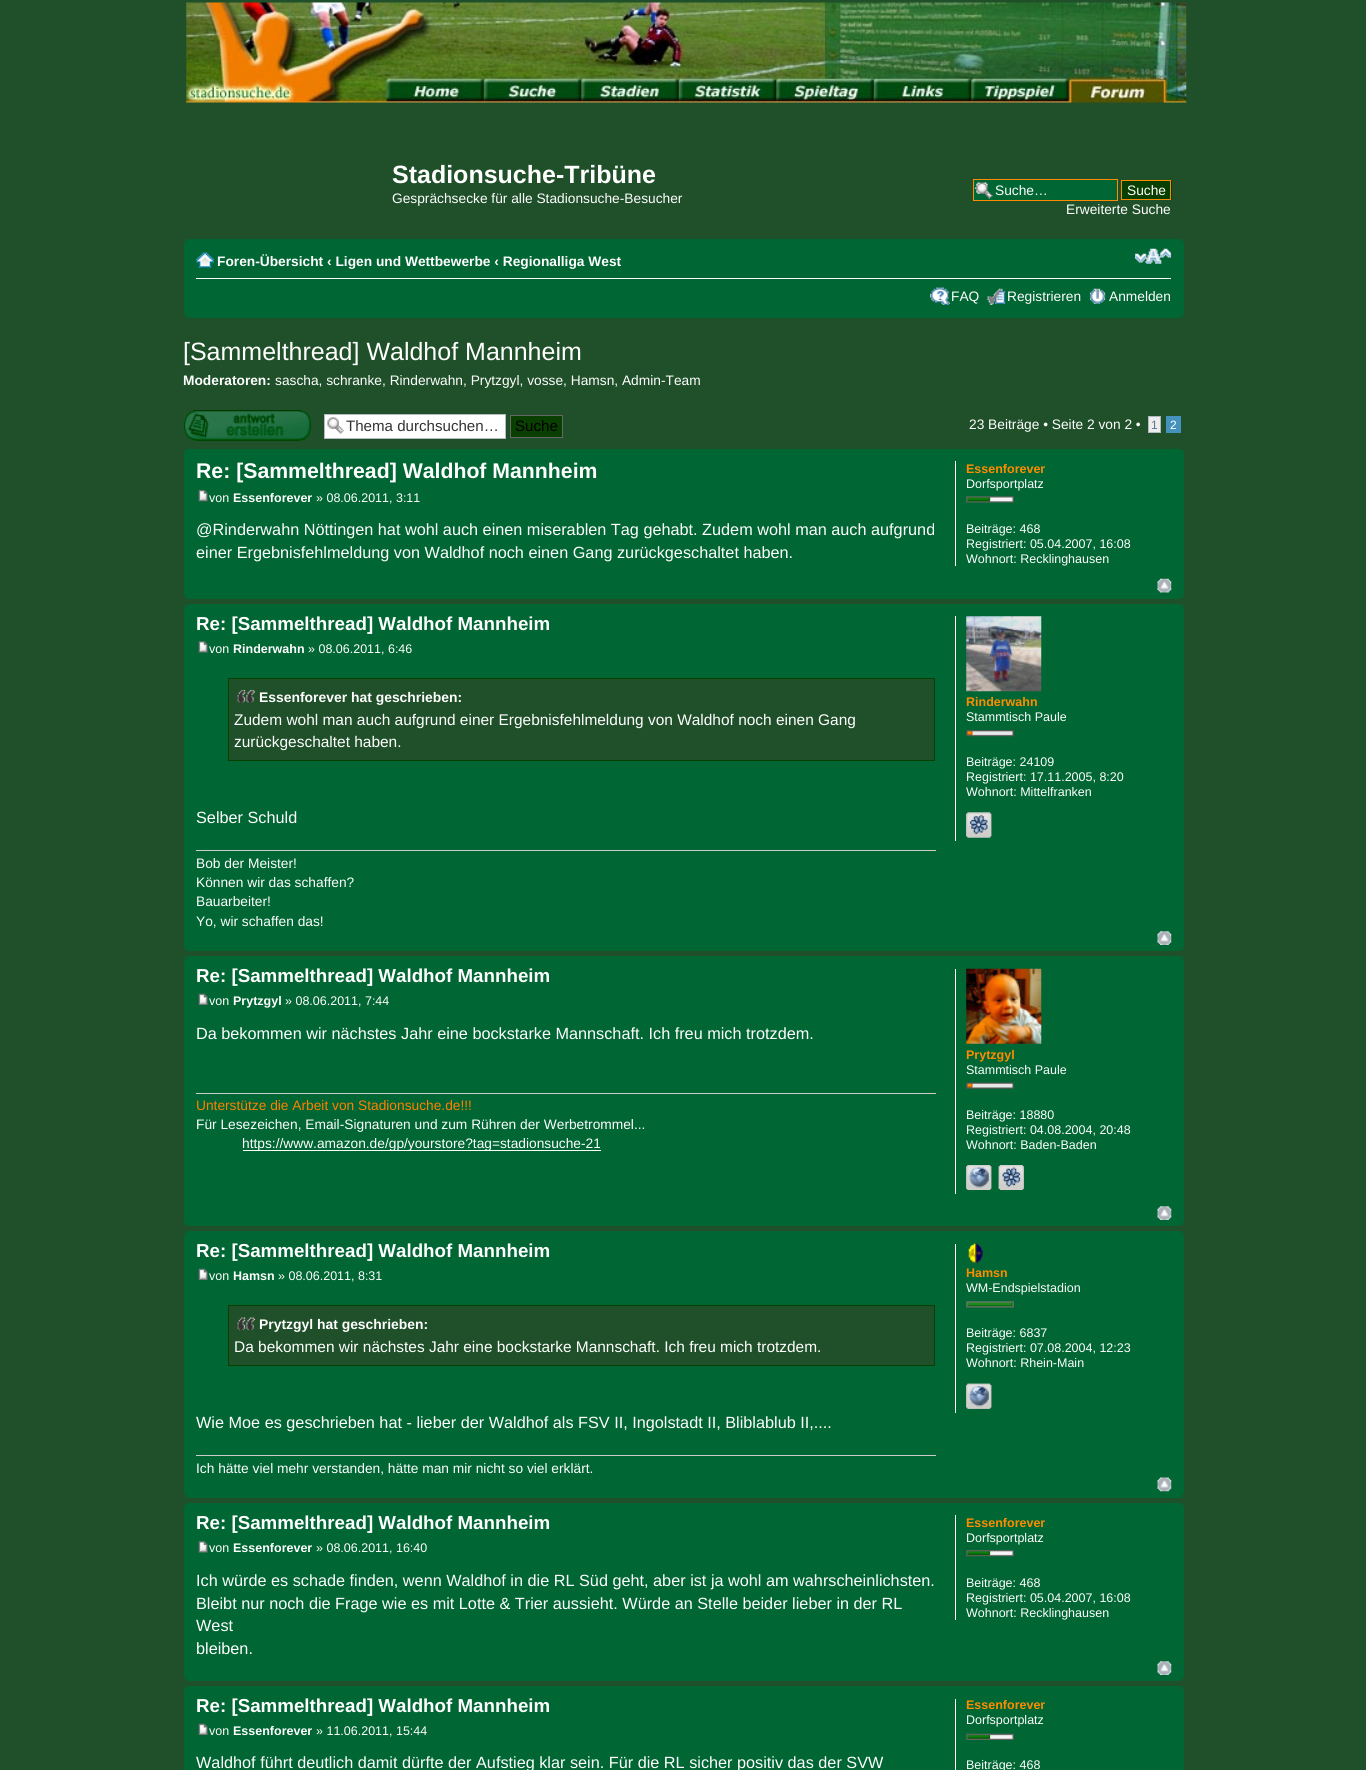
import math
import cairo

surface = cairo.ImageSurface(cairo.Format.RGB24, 1366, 1770)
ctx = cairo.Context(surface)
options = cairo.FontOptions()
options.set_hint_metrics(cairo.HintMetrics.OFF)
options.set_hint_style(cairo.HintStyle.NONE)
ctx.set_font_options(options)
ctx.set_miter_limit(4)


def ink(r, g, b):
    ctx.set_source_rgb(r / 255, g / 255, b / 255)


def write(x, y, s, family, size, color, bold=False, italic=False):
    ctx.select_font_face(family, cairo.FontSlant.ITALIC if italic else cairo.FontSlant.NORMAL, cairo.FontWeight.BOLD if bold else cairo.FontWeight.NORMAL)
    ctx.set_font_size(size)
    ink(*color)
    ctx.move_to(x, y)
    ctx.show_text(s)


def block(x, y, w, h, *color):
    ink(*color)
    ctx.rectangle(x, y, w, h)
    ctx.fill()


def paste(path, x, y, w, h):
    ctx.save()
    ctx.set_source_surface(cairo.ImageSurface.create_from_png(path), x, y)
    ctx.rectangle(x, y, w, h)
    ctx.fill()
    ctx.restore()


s1 = dict(family="Liberation Sans", size=25, color=(255, 255, 255), bold=True)
s2 = dict(family="Liberation Sans", size=13.75, color=(255, 255, 255))
s3 = dict(family="Liberation Sans", size=13.75, color=(255, 255, 255), bold=True)
s4 = dict(family="Liberation Sans", size=25, color=(255, 255, 255))
s5 = dict(family="Liberation Sans", size=15.1, color=(51, 51, 51))
s6 = dict(family="Liberation Sans", size=15.1, color=(0, 0, 0))
s7 = dict(family="Liberation Sans", size=12, color=(92, 117, 140))
s8 = dict(family="Liberation Sans", size=12, color=(255, 255, 255))
s9 = dict(family="Liberation Sans", size=21.25, color=(255, 255, 255), bold=True)
s10 = dict(family="Liberation Sans", size=12.5, color=(255, 255, 255))
s11 = dict(family="Liberation Sans", size=12.5, color=(255, 255, 255), bold=True)
s12 = dict(family="Liberation Sans", size=16.25, color=(255, 255, 255))
s13 = dict(family="Liberation Sans", size=12.5, color=(255, 140, 0), bold=True)
s14 = dict(family="Liberation Sans", size=18.75, color=(255, 255, 255), bold=True)
s15 = dict(family="Liberation Sans", size=13.9, color=(255, 255, 255), bold=True)
s16 = dict(family="Liberation Sans", size=15.45, color=(255, 255, 255))
s17 = dict(family="Liberation Sans", size=13.75, color=(255, 128, 0))

ink(32, 80, 42)
ctx.paint()
paste("pic1.png", 186, 2, 1001, 101)
write(392, 183, "Stadionsuche-Tribüne", **s1)
write(392, 203, "Gesprächsecke für alle Stadionsuche-Besucher", **s2)
block(974, 180, 143, 20, 0, 102, 51)
paste("pic2.png", 974, 182, 19, 17)
ctx.rectangle(973.5, 179.5, 144, 21)
ink(255, 140, 0)
ctx.set_line_width(1)
ctx.stroke()
write(995, 195, "Suche…", **s2)
block(1122, 181, 50, 19, 9, 63, 0)
ctx.rectangle(1121.5, 180.5, 49, 19)
ink(255, 140, 0)
ctx.stroke()
write(1127, 195, "Suche", **s2)
write(1066, 214, "Erweiterte Suche", **s2)
block(184, 239, 1000, 79, 0, 102, 51)
paste("pic3.png", 184, 239, 6, 5)
paste("pic4.png", 1179, 239, 5, 4)
block(196, 278, 975, 1, 255, 255, 255)
paste("pic5.png", 196, 252, 18, 16)
write(217, 266, "Foren-Übersicht ‹ Ligen und Wettbewerbe ‹ Regionalliga West", **s3)
paste("pic6.png", 1135, 248, 37, 16)
paste("pic7.png", 930, 287, 20, 18)
write(951, 301, "FAQ", **s2)
paste("pic8.png", 987, 288, 19, 17)
write(1007, 301, "Registrieren", **s2)
paste("pic9.png", 1089, 288, 17, 16)
write(1109, 301, "Anmelden", **s2)
paste("pic10.png", 184, 312, 5, 6)
paste("pic11.png", 1179, 313, 5, 5)
write(183, 360, "[Sammelthread] Waldhof Mannheim", **s4)
write(183, 385, "Moderatoren:", **s3)
write(275, 385, "sascha, schranke, Rinderwahn, Prytzgyl, vosse, Hamsn, Admin-Team", **s2)
paste("pic12.png", 184, 410, 127, 31)
block(325, 415, 180, 23, 255, 255, 255)
paste("pic13.png", 327, 417, 17, 17)
ctx.rectangle(324.5, 414.5, 181, 24)
ink(180, 186, 192)
ctx.stroke()
write(346, 431, "Thema durchsuchen…", **s5)
ink(9, 63, 0)
ctx.rectangle(510.5, 415.5, 52, 22)
ctx.fill_preserve()
ink(102, 102, 102)
ctx.stroke()
write(515, 431, "Suche", **s6)
write(969, 429, "23 Beiträge • Seite 2 von 2 •", **s2)
ink(236, 237, 238)
ctx.rectangle(1148.5, 416.5, 12, 16)
ctx.fill_preserve()
ink(180, 186, 192)
ctx.stroke()
write(1151, 429, "1", **s7)
block(1166, 416, 15, 17, 70, 146, 191)
write(1170, 429, "2", **s8)
block(184, 449, 1000, 150, 0, 102, 51)
paste("pic3.png", 184, 449, 6, 5)
paste("pic4.png", 1179, 449, 5, 4)
write(196, 478, "Re: [Sammelthread] Waldhof Mannheim", **s9)
paste("pic14.png", 198, 490, 10, 12)
write(209, 502, "von", **s10)
write(233, 502, "Essenforever", **s11)
write(316, 502, "» 08.06.2011, 3:11", **s10)
write(196, 535, "@Rinderwahn Nöttingen hat wohl auch einen miserablen Tag gehabt. Zudem wohl man auch aufgrund", **s12)
write(196, 558, "einer Ergebnisfehlmeldung von Waldhof noch einen Gang zurückgeschaltet haben.", **s12)
block(955, 461, 1, 105, 255, 255, 255)
write(966, 473, "Essenforever", **s13)
write(966, 488, "Dorfsportplatz", **s10)
paste("pic15.png", 966, 496, 48, 7)
write(966, 533, "Beiträge: 468", **s10)
write(966, 548, "Registriert: 05.04.2007, 16:08", **s10)
write(966, 563, "Wohnort: Recklinghausen", **s10)
paste("pic16.png", 1157, 578, 15, 15)
paste("pic17.png", 184, 594, 5, 5)
paste("pic18.png", 1179, 594, 5, 5)
block(184, 604, 1000, 347, 0, 102, 51)
paste("pic3.png", 184, 604, 6, 5)
paste("pic4.png", 1179, 604, 5, 4)
write(196, 630, "Re: [Sammelthread] Waldhof Mannheim", **s14)
paste("pic19.png", 198, 641, 10, 12)
write(209, 653, "von", **s10)
write(233, 653, "Rinderwahn", **s11)
write(308, 653, "» 08.06.2011, 6:46", **s10)
block(229, 679, 705, 81, 32, 80, 42)
paste("pic20.png", 237, 689, 18, 14)
ctx.rectangle(228.5, 678.5, 706, 82)
ink(9, 63, 0)
ctx.stroke()
write(259, 702, "Essenforever hat geschrieben:", **s15)
write(234, 725, "Zudem wohl man auch aufgrund einer Ergebnisfehlmeldung von Waldhof noch einen Gang", **s16)
write(234, 747, "zurückgeschaltet haben.", **s16)
write(196, 823, "Selber Schuld", **s12)
block(196, 850, 740, 1, 204, 204, 204)
write(196, 868, "Bob der Meister!", **s2)
write(196, 887, "Können wir das schaffen?", **s2)
write(196, 906, "Bauarbeiter!", **s2)
write(196, 926, "Yo, wir schaffen das!", **s2)
block(955, 616, 1, 225, 255, 255, 255)
paste("pic21.png", 966, 616, 76, 76)
write(966, 706, "Rinderwahn", **s13)
write(966, 721, "Stammtisch Paule", **s10)
paste("pic22.png", 966, 729, 48, 8)
write(966, 766, "Beiträge: 24109", **s10)
write(966, 781, "Registriert: 17.11.2005, 8:20", **s10)
write(966, 796, "Wohnort: Mittelfranken", **s10)
paste("pic23.png", 966, 812, 26, 26)
paste("pic24.png", 966, 812, 26, 26)
paste("pic25.png", 1157, 931, 15, 14)
paste("pic26.png", 184, 946, 5, 5)
paste("pic27.png", 1179, 946, 5, 5)
block(184, 956, 1000, 270, 0, 102, 51)
paste("pic28.png", 184, 956, 5, 5)
paste("pic29.png", 1179, 956, 5, 5)
write(196, 982, "Re: [Sammelthread] Waldhof Mannheim", **s14)
paste("pic30.png", 198, 993, 10, 12)
write(209, 1005, "von", **s10)
write(233, 1005, "Prytzgyl", **s11)
write(285, 1005, "» 08.06.2011, 7:44", **s10)
write(196, 1039, "Da bekommen wir nächstes Jahr eine bockstarke Mannschaft. Ich freu mich trotzdem.", **s12)
block(196, 1093, 740, 1, 204, 204, 204)
write(196, 1110, "Unterstütze die Arbeit von Stadionsuche.de!!!", **s17)
write(196, 1129, "Für Lesezeichen, Email-Signaturen und zum Rühren der Werbetrommel...", **s2)
block(243, 1150, 358, 1, 255, 255, 255)
write(242, 1148, "https://www.amazon.de/gp/yourstore?tag=stadionsuche-21", **s2)
block(955, 969, 1, 225, 255, 255, 255)
paste("pic31.png", 966, 968, 76, 76)
write(966, 1059, "Prytzgyl", **s13)
write(966, 1074, "Stammtisch Paule", **s10)
paste("pic32.png", 966, 1082, 48, 7)
write(966, 1119, "Beiträge: 18880", **s10)
write(966, 1134, "Registriert: 04.08.2004, 20:48", **s10)
write(966, 1149, "Wohnort: Baden-Baden", **s10)
paste("pic33.png", 966, 1165, 26, 25)
paste("pic34.png", 966, 1165, 26, 25)
paste("pic35.png", 998, 1165, 26, 25)
paste("pic36.png", 998, 1165, 26, 25)
paste("pic25.png", 1157, 1206, 15, 14)
paste("pic26.png", 184, 1221, 5, 5)
paste("pic27.png", 1179, 1221, 5, 5)
block(184, 1231, 1000, 267, 0, 102, 51)
paste("pic28.png", 184, 1231, 5, 5)
paste("pic29.png", 1179, 1231, 5, 5)
write(196, 1257, "Re: [Sammelthread] Waldhof Mannheim", **s14)
paste("pic30.png", 198, 1268, 10, 12)
write(209, 1280, "von", **s10)
write(233, 1280, "Hamsn", **s11)
write(278, 1280, "» 08.06.2011, 8:31", **s10)
block(229, 1306, 705, 59, 32, 80, 42)
paste("pic37.png", 237, 1317, 18, 14)
ctx.rectangle(228.5, 1305.5, 706, 60)
ink(9, 63, 0)
ctx.stroke()
write(259, 1329, "Prytzgyl hat geschrieben:", **s15)
write(234, 1352, "Da bekommen wir nächstes Jahr eine bockstarke Mannschaft. Ich freu mich trotzdem.", **s16)
write(196, 1428, "Wie Moe es geschrieben hat - lieber der Waldhof als FSV II, Ingolstadt II, Bliblablub II,....", **s12)
block(196, 1455, 740, 1, 204, 204, 204)
write(196, 1473, "Ich hätte viel mehr verstanden, hätte man mir nicht so viel erklärt.", **s2)
block(955, 1244, 1, 169, 255, 255, 255)
paste("pic38.png", 968, 1243, 15, 20)
write(966, 1277, "Hamsn", **s13)
write(966, 1292, "WM-Endspielstadion", **s10)
paste("pic39.png", 966, 1301, 48, 7)
write(966, 1337, "Beiträge: 6837", **s10)
write(966, 1352, "Registriert: 07.08.2004, 12:23", **s10)
write(966, 1367, "Wohnort: Rhein-Main", **s10)
paste("pic40.png", 966, 1383, 26, 26)
paste("pic41.png", 966, 1383, 26, 26)
paste("pic42.png", 1157, 1477, 15, 15)
paste("pic10.png", 184, 1492, 5, 6)
paste("pic11.png", 1179, 1493, 5, 5)
block(184, 1503, 1000, 178, 0, 102, 51)
paste("pic43.png", 184, 1503, 5, 5)
paste("pic44.png", 1179, 1503, 5, 4)
write(196, 1529, "Re: [Sammelthread] Waldhof Mannheim", **s14)
paste("pic19.png", 198, 1541, 10, 12)
write(209, 1552, "von", **s10)
write(233, 1552, "Essenforever", **s11)
write(316, 1552, "» 08.06.2011, 16:40", **s10)
write(196, 1586, "Ich würde es schade finden, wenn Waldhof in die RL Süd geht, aber ist ja wohl am wahrscheinlichsten.", **s12)
write(196, 1609, "Bleibt nur noch die Frage wie es mit Lotte & Trier aussieht. Würde an Stelle beider lieber in der RL", **s12)
write(196, 1631, "West", **s12)
write(196, 1654, "bleiben.", **s12)
block(955, 1515, 1, 105, 255, 255, 255)
write(966, 1527, "Essenforever", **s13)
write(966, 1542, "Dorfsportplatz", **s10)
paste("pic45.png", 966, 1549, 48, 8)
write(966, 1587, "Beiträge: 468", **s10)
write(966, 1602, "Registriert: 05.04.2007, 16:08", **s10)
write(966, 1617, "Wohnort: Recklinghausen", **s10)
paste("pic25.png", 1157, 1661, 15, 14)
paste("pic26.png", 184, 1676, 5, 5)
paste("pic27.png", 1179, 1676, 5, 5)
block(184, 1686, 1000, 84, 0, 102, 51)
paste("pic28.png", 184, 1686, 5, 5)
paste("pic29.png", 1179, 1686, 5, 5)
write(196, 1712, "Re: [Sammelthread] Waldhof Mannheim", **s14)
paste("pic30.png", 198, 1723, 10, 12)
write(209, 1735, "von", **s10)
write(233, 1735, "Essenforever", **s11)
write(316, 1735, "» 11.06.2011, 15:44", **s10)
write(196, 1768, "Waldhof führt deutlich damit dürfte der Aufstieg klar sein. Für die RL sicher positiv das der SVW", **s12)
block(955, 1699, 1, 71, 255, 255, 255)
write(966, 1709, "Essenforever", **s13)
write(966, 1724, "Dorfsportplatz", **s10)
paste("pic46.png", 966, 1733, 48, 7)
write(966, 1769, "Beiträge: 468", **s10)
surface.write_to_png("screenshot.png")
